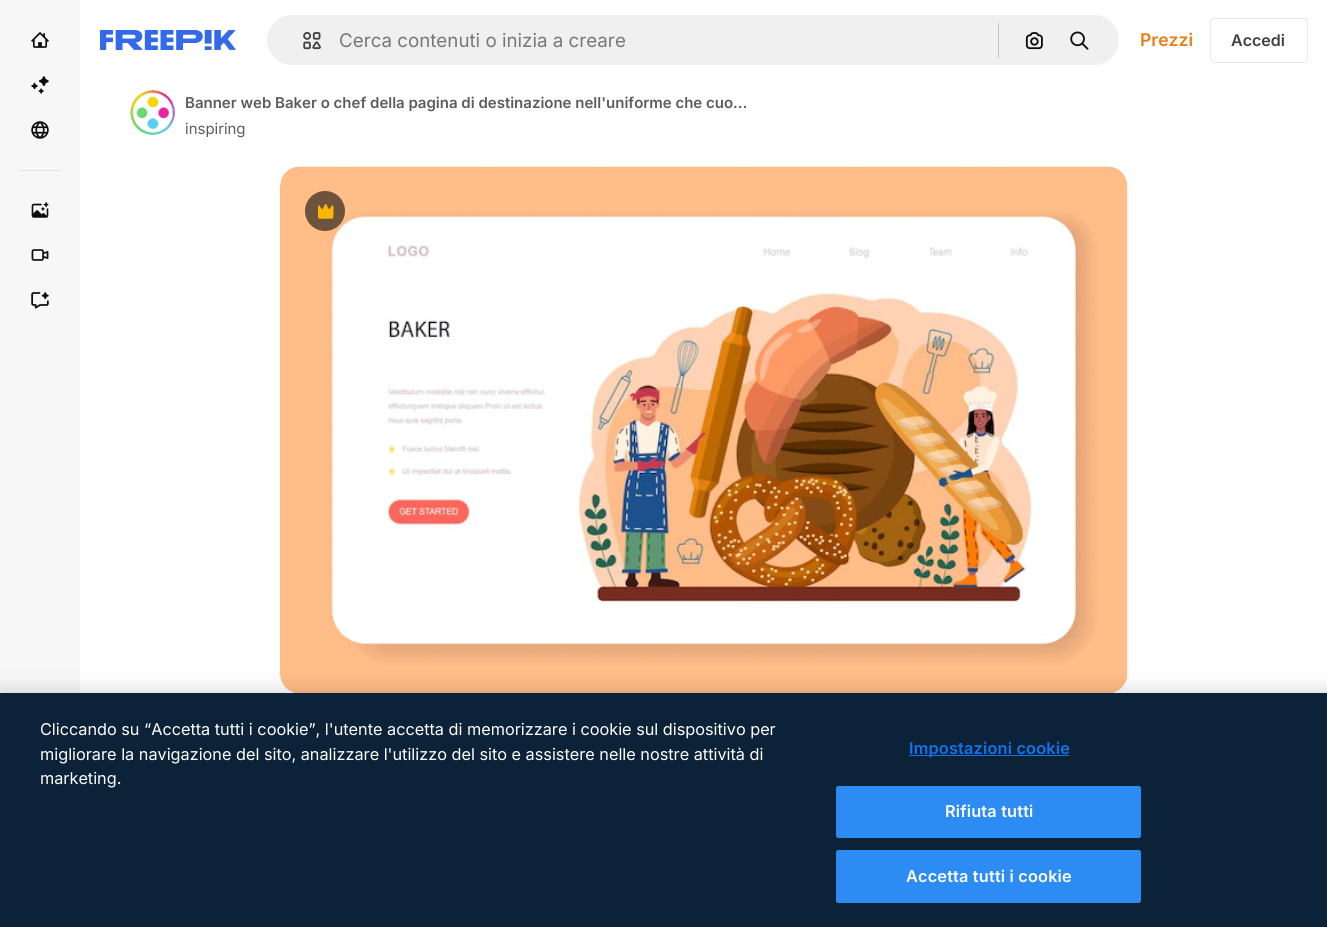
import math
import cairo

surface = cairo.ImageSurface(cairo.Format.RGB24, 1327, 927)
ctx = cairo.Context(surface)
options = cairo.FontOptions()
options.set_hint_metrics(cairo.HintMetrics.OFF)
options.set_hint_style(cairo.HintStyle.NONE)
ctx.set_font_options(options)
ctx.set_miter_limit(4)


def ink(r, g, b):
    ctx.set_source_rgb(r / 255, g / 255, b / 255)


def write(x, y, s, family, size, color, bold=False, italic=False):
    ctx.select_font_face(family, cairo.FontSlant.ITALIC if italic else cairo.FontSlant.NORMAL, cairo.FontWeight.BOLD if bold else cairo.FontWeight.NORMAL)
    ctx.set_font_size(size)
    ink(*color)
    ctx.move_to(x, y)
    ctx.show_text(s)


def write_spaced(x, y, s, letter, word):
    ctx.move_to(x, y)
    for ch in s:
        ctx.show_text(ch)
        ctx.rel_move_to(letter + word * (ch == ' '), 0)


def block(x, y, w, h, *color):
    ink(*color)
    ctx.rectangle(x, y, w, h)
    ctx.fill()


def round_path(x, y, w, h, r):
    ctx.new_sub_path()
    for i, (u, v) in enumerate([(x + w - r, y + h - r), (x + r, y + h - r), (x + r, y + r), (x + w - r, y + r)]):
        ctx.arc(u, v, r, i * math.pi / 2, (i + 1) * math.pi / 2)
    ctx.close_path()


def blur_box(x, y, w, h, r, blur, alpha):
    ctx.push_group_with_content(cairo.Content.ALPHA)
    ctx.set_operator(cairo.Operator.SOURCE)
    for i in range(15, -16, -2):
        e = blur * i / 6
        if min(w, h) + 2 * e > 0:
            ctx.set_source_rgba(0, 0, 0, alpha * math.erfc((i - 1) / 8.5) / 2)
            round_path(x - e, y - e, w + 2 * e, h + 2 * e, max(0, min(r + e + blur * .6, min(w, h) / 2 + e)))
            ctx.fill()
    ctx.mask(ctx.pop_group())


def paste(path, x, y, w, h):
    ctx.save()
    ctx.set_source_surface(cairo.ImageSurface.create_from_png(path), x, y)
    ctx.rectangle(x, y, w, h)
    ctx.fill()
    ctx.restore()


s1 = dict(family="Inter", size=18.75, color=(119, 119, 119))
s2 = dict(family="Inter SemiBold", size=17.5, color=(234, 126, 17))
s3 = dict(family="Inter SemiBold", size=16, color=(66, 66, 66))
s4 = dict(family="Inter SemiBold", size=15, color=(92, 92, 92))
s5 = dict(family="Inter", size=15, color=(92, 92, 92))
s6 = dict(family="Inter", size=16.25, color=(255, 255, 255))

ink(255, 255, 255)
ctx.paint()
block(0, 0, 80, 693, 247, 247, 247)
paste("pic1.png", 31, 32, 18, 16)
paste("pic2.png", 31, 76, 18, 18)
paste("pic3.png", 31, 121, 18, 18)
block(20, 170, 40, 1, 224, 224, 224)
paste("pic4.png", 31, 202, 18, 16)
paste("pic5.png", 31, 249, 18, 12)
paste("pic6.png", 31, 292, 18, 17)
paste("pic7.png", 100, 30, 136, 20)
ink(240, 240, 240)
round_path(266.5, 14.5, 853, 51, 25.5)
ctx.fill_preserve()
ink(255, 255, 255)
ctx.set_line_width(1)
ctx.stroke()
paste("pic8.png", 303, 31, 18, 19)
write(339, 47, "Cerca contenuti o inizia a creare", **s1)
block(998, 23, 1, 35, 195, 195, 195)
paste("pic9.png", 1025, 32, 18, 18)
paste("pic10.png", 1070, 31, 19, 19)
write(1140, 46, "Prezzi", **s2)
round_path(1210.5, 18.5, 97, 44, 4.5)
ink(231, 231, 231)
ctx.stroke()
write(1231, 46, "Accedi", **s3)
paste("pic11.png", 130, 90, 45, 45)
write(185, 108, "Banner web Baker o chef della pagina di destinazione nell'uniforme che cuo…", **s4)
write(185, 134, "inspiring", **s5)
paste("pic12.png", 280, 166, 848, 527)
ctx.set_source_rgba(0.051, 0.051, 0.051, 0.6)
ctx.arc(325, 211, 20, 0, 2 * math.pi)
ctx.fill()
paste("pic13.png", 318, 204, 16, 15)
ink(0, 0, 0)
blur_box(0, 693, 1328, 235, 0, 11, 0.2)
block(0, 693, 1327, 234, 11, 34, 57)
write(40, 735, "Cliccando su “Accetta tutti i cookie”, l'utente accetta di memorizzare i cookie sul dispositivo per", **s6)
write(40, 760, "migliorare la navigazione del sito, analizzare l'utilizzo del sito e assistere nelle nostre attività di", **s6)
write(40, 784, "marketing.", **s6)
block(909, 755, 160, 1, 18, 115, 235)
ctx.select_font_face("Inter SemiBold")
write_spaced(909, 754, "Impostazioni cookie", 0.2, 0)
ink(44, 140, 244)
round_path(836.5, 786.5, 304, 51, 2)
ctx.fill_preserve()
ctx.stroke()
ink(255, 255, 255)
write_spaced(945, 817, "Rifiuta tutti", 0.2, 0)
ink(44, 140, 244)
round_path(836.5, 850.5, 304, 52, 2)
ctx.fill_preserve()
ctx.stroke()
ink(255, 255, 255)
write_spaced(906, 882, "Accetta tutti i cookie", 0.2, 0)
surface.write_to_png("screenshot.png")
